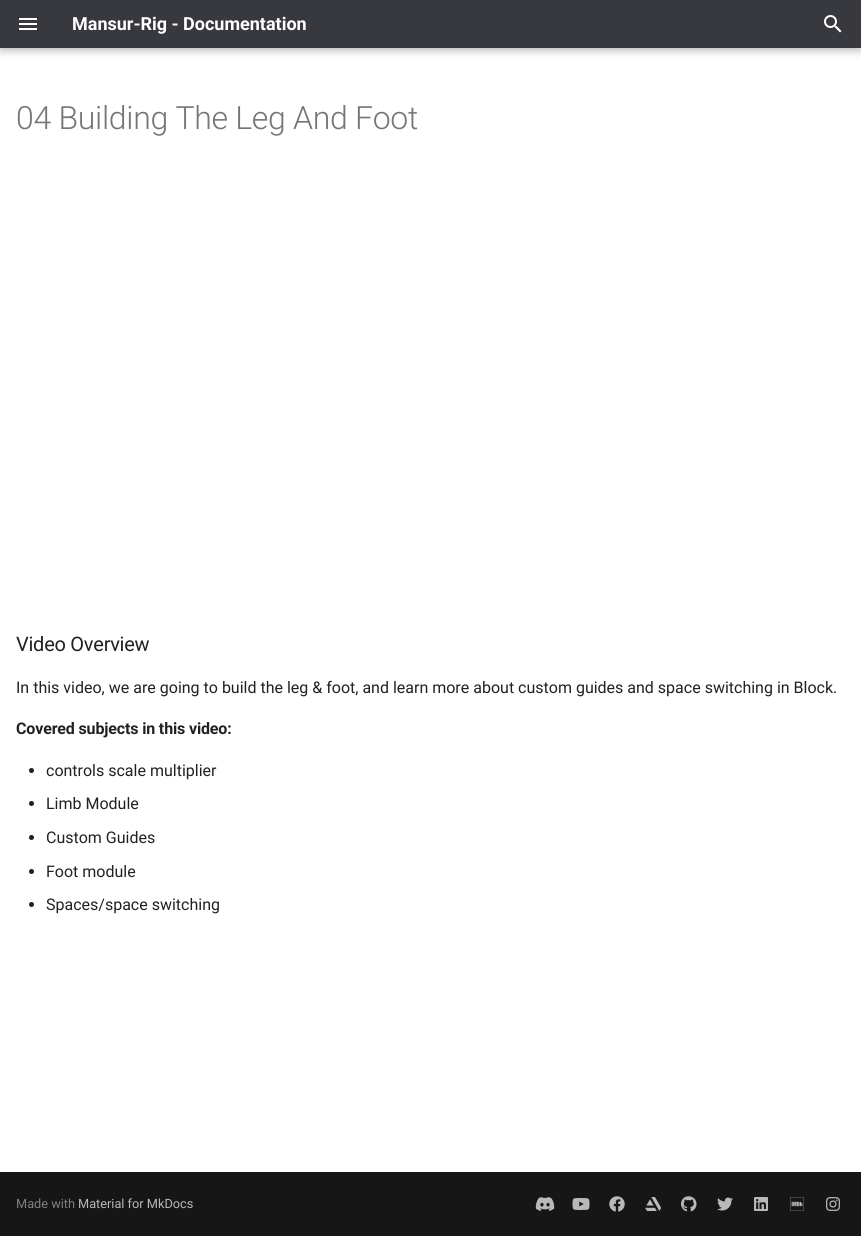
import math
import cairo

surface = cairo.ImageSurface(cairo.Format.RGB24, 861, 1236)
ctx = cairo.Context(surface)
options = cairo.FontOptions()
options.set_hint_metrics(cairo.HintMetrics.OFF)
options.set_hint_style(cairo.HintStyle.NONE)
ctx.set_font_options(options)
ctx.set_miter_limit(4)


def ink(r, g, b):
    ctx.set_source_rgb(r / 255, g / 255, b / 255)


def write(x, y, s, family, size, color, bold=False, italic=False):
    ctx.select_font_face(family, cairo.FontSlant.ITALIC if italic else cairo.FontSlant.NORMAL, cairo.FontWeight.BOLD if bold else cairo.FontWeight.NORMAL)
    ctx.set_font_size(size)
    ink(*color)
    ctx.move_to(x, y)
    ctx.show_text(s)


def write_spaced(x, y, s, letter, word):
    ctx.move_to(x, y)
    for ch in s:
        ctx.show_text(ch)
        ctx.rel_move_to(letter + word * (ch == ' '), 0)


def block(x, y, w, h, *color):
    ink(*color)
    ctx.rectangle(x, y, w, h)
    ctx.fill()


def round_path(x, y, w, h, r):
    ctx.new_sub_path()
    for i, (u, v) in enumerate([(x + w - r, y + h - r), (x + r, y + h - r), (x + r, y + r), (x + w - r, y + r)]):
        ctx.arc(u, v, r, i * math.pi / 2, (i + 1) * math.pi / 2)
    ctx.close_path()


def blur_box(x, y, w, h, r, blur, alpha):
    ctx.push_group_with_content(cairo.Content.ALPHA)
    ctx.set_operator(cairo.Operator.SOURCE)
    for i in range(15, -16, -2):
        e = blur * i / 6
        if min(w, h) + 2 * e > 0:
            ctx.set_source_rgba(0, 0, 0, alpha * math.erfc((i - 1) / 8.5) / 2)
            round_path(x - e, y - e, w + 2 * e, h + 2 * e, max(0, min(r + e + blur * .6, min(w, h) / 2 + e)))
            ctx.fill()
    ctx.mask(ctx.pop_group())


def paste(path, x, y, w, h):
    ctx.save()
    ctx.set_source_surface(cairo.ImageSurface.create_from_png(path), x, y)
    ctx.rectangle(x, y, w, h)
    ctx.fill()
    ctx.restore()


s1 = dict(family="Roboto", size=18, color=(255, 255, 255), bold=True)
s2 = dict(family="Roboto", size=16, color=(33, 33, 33))
s3 = dict(family="Roboto", size=12.75, color=(127, 127, 127))
s4 = dict(family="Roboto", size=12.75, color=(185, 185, 185))

ink(255, 255, 255)
ctx.paint()
ink(0, 0, 0)
blur_box(0, 4, 861, 48, 0, 4, 0.2)
blur_box(0, 0, 861, 48, 0, 2, 0.1)
block(0, 0, 861, 48, 56, 57, 62)
paste("pic1.png", 19, 18, 18, 12)
write(72, 30, "Mansur-Rig - Documentation", **s1)
paste("pic2.png", 824, 15, 18, 18)
ctx.select_font_face("Roboto Light")
ctx.set_font_size(32)
ink(117, 117, 117)
write_spaced(16, 129, "04 Building The Leg And Foot", -0.3, 0)
ctx.select_font_face("Roboto")
ctx.set_font_size(20)
ink(33, 33, 33)
write_spaced(16, 651, "Video Overview", -0.25, 0)
write(16, 693, "In this video, we are going to build the leg & foot, and learn more about custom guides and space switching in Block.", **s2)
ctx.select_font_face("Roboto", cairo.FontSlant.NORMAL, cairo.FontWeight.BOLD)
write_spaced(16, 734, "Covered subjects in this video:", -0.15, 0)
ctx.new_path()
ctx.arc(31.5, 770.5, 2.5, 0, 2 * math.pi)
ctx.fill()
write(46, 776, "controls scale multiplier", **s2)
ctx.new_path()
ctx.arc(31.5, 803.5, 2.5, 0, 2 * math.pi)
ctx.fill()
write(46, 809, "Limb Module", **s2)
ctx.new_path()
ctx.arc(31.5, 837.5, 2.5, 0, 2 * math.pi)
ctx.fill()
write(46, 843, "Custom Guides", **s2)
ctx.new_path()
ctx.arc(31.5, 871.5, 2.5, 0, 2 * math.pi)
ctx.fill()
write(46, 877, "Foot module", **s2)
ctx.new_path()
ctx.arc(31.5, 904.5, 2.5, 0, 2 * math.pi)
ctx.fill()
write(46, 910, "Spaces/space switching", **s2)
block(0, 1172, 861, 64, 22, 22, 22)
write(16, 1208, "Made with", **s3)
write(78, 1208, "Material for MkDocs", **s4)
paste("pic3.png", 535, 1197, 20, 14)
paste("pic4.png", 572, 1198, 18, 12)
paste("pic5.png", 609, 1196, 16, 16)
paste("pic6.png", 645, 1197, 16, 14)
paste("pic7.png", 681, 1196, 16, 16)
paste("pic8.png", 717, 1197, 16, 14)
paste("pic9.png", 754, 1197, 14, 14)
paste("pic10.png", 790, 1197, 14, 14)
paste("pic11.png", 826, 1197, 14, 14)
surface.write_to_png("screenshot.png")
